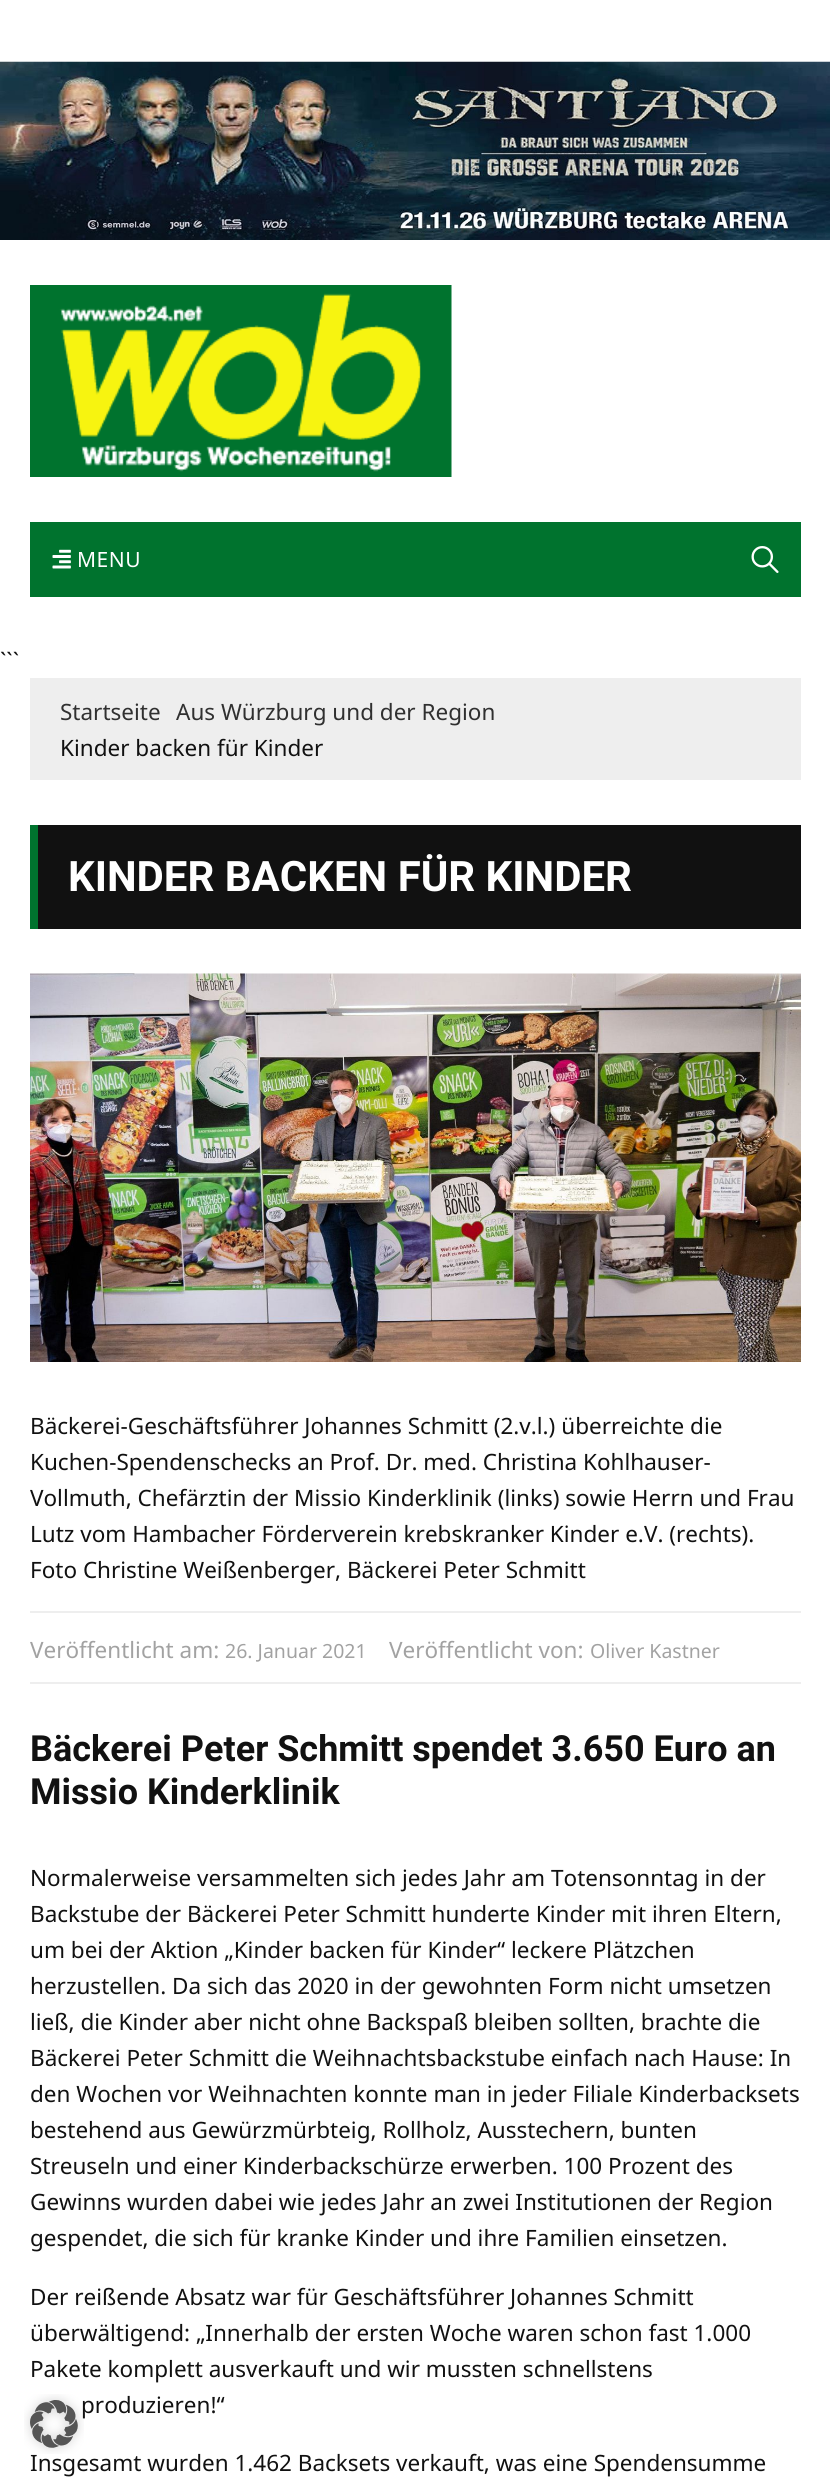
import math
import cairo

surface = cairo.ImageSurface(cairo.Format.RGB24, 830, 2478)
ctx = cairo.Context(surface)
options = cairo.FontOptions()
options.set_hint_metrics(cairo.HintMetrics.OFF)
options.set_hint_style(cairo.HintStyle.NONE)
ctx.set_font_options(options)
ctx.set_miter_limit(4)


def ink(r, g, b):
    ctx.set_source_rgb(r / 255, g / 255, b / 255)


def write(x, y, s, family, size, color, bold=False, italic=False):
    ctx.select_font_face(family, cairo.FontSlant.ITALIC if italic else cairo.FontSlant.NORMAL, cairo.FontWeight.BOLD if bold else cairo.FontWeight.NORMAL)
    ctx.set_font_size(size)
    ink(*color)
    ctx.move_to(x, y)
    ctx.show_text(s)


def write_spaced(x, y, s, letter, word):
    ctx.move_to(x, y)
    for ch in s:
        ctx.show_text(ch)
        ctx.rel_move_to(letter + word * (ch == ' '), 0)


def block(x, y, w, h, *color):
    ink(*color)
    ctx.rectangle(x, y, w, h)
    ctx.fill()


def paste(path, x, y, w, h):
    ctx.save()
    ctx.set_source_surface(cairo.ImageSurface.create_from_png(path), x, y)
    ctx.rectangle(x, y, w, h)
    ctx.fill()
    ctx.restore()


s1 = dict(family="Noto Sans", size=22.5, color=(17, 17, 17))
s2 = dict(family="Noto Sans", size=22.5, color=(48, 48, 48))
s3 = dict(family="Roboto", size=42, color=(255, 255, 255), bold=True)
s4 = dict(family="Noto Sans", size=22.5, color=(162, 162, 162))
s5 = dict(family="Noto Sans", size=19.5, color=(162, 162, 162))
s6 = dict(family="Roboto", size=36, color=(17, 17, 17), bold=True)

ink(255, 255, 255)
ctx.paint()
paste("pic1.png", 0, 61, 830, 179)
paste("pic2.png", 30, 285, 422, 192)
block(30, 522, 771, 75, 0, 115, 46)
paste("pic3.png", 52, 549, 19, 20)
ctx.select_font_face("Noto Sans")
ctx.set_font_size(21)
ink(255, 255, 255)
write_spaced(77, 567, "MENU", 0.5, 0)
paste("pic4.png", 751, 546, 28, 27)
write(0, 669, "```", **s1)
block(30, 678, 771, 102, 238, 238, 238)
write(60, 720, "Startseite", **s2)
write(176, 720, "Aus Würzburg und der Region", **s2)
write(60, 756, "Kinder backen für Kinder", **s1)
block(38, 825, 763, 104, 17, 17, 17)
block(30, 825, 8, 104, 0, 115, 46)
write(68, 891, "KINDER BACKEN FÜR KINDER", **s3)
paste("pic5.png", 30, 973, 771, 389)
write(30, 1434, "Bäckerei-Geschäftsführer Johannes Schmitt (2.v.l.) überreichte die", **s1)
write(30, 1470, "Kuchen-Spendenschecks an Prof. Dr. med. Christina Kohlhauser-", **s1)
write(30, 1506, "Vollmuth, Chefärztin der Missio Kinderklinik (links) sowie Herrn und Frau", **s1)
write(30, 1542, "Lutz vom Hambacher Förderverein krebskranker Kinder e.V. (rechts).", **s1)
write(30, 1578, "Foto Christine Weißenberger, Bäckerei Peter Schmitt", **s1)
block(30, 1611, 771, 2, 238, 238, 238)
block(30, 1682, 771, 2, 238, 238, 238)
write(30, 1658, "Veröffentlicht am:", **s4)
write(225, 1658, "26. Januar 2021", **s5)
write(389, 1658, "Veröffentlicht von:", **s4)
write(590, 1658, "Oliver Kastner", **s5)
write(30, 1761, "Bäckerei Peter Schmitt spendet 3.650 Euro an", **s6)
write(30, 1804, "Missio Kinderklinik", **s6)
write(30, 1886, "Normalerweise versammelten sich jedes Jahr am Totensonntag in der", **s1)
write(30, 1922, "Backstube der Bäckerei Peter Schmitt hunderte Kinder mit ihren Eltern,", **s1)
write(30, 1958, "um bei der Aktion „Kinder backen für Kinder“ leckere Plätzchen", **s1)
write(30, 1994, "herzustellen. Da sich das 2020 in der gewohnten Form nicht umsetzen", **s1)
write(30, 2030, "ließ, die Kinder aber nicht ohne Backspaß bleiben sollten, brachte die", **s1)
write(30, 2066, "Bäckerei Peter Schmitt die Weihnachtsbackstube einfach nach Hause: In", **s1)
write(30, 2102, "den Wochen vor Weihnachten konnte man in jeder Filiale Kinderbacksets", **s1)
write(30, 2138, "bestehend aus Gewürzmürbteig, Rollholz, Ausstechern, bunten", **s1)
write(30, 2174, "Streuseln und einer Kinderbackschürze erwerben. 100 Prozent des", **s1)
write(30, 2210, "Gewinns wurden dabei wie jedes Jahr an zwei Institutionen der Region", **s1)
write(30, 2246, "gespendet, die sich für kranke Kinder und ihre Familien einsetzen.", **s1)
write(30, 2305, "Der reißende Absatz war für Geschäftsführer Johannes Schmitt", **s1)
write(30, 2341, "überwältigend: „Innerhalb der ersten Woche waren schon fast 1.000", **s1)
write(30, 2377, "Pakete komplett ausverkauft und wir mussten schnellstens", **s1)
write(81, 2413, "produzieren!“", **s1)
write(30, 2471, "Insgesamt wurden 1.462 Backsets verkauft, was eine Spendensumme", **s1)
paste("pic6.png", 24, 2394, 60, 60)
surface.write_to_png("screenshot.png")
